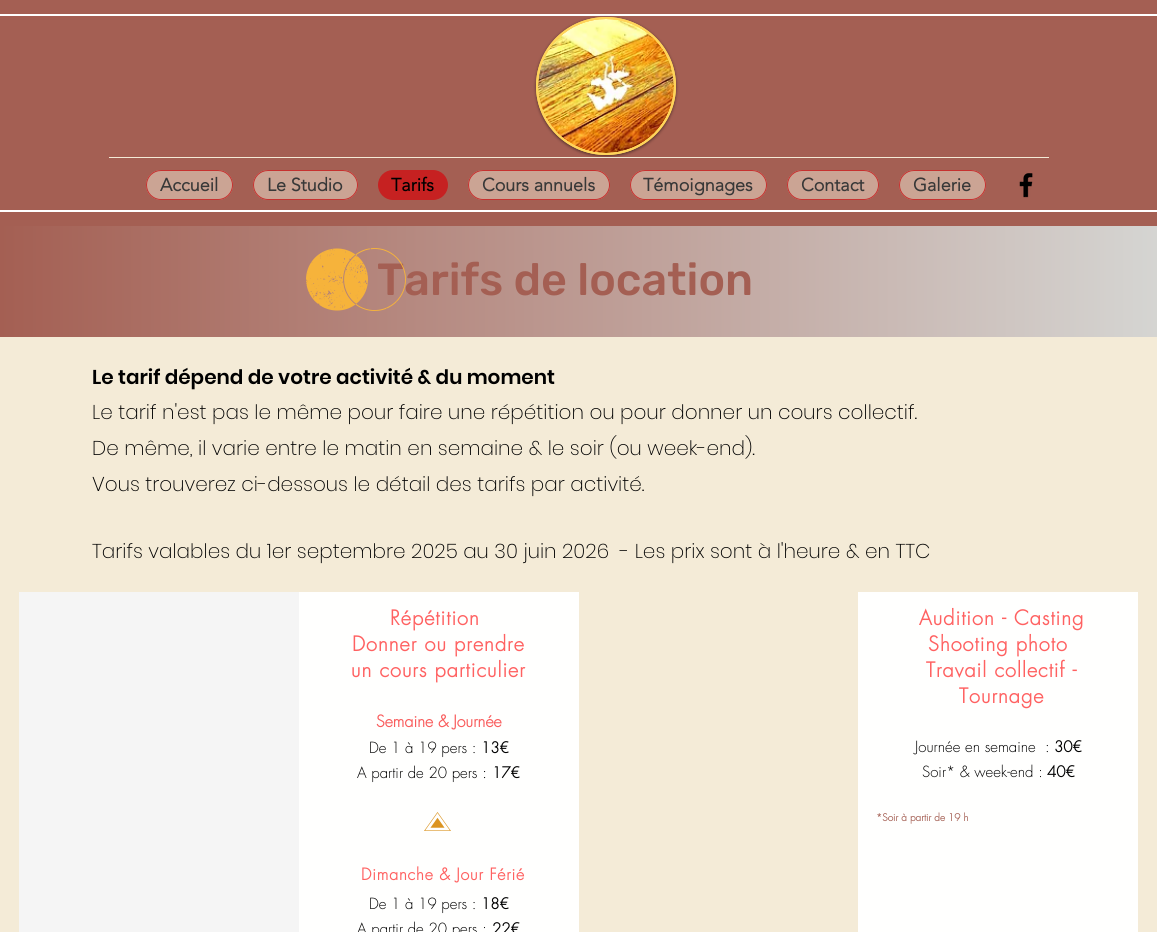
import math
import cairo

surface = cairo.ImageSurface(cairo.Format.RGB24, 1157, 932)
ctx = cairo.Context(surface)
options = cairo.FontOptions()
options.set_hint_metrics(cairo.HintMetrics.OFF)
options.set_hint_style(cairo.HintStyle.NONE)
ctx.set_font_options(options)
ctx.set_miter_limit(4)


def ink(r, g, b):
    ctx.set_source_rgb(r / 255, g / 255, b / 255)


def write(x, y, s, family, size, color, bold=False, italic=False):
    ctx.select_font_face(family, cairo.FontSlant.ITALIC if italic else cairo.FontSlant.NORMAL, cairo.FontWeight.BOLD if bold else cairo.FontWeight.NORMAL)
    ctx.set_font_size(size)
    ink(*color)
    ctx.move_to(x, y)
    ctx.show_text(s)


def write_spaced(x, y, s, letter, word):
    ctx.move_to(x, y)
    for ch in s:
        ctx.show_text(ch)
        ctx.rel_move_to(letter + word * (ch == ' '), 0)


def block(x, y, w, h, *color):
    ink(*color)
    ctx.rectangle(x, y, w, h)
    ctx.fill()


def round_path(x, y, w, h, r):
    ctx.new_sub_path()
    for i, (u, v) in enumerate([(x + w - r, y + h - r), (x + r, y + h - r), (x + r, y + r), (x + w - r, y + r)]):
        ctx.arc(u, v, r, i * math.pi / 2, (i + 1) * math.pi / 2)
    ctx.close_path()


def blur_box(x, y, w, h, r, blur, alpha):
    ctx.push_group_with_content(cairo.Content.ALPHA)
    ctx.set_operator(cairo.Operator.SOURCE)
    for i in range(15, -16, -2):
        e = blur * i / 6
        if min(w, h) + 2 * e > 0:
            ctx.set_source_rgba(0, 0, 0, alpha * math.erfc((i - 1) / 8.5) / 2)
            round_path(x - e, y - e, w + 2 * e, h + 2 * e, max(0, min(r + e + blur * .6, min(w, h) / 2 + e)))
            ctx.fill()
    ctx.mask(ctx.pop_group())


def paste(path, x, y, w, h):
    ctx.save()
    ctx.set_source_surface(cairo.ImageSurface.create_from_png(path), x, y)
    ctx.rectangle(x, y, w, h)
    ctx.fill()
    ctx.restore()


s1 = dict(family="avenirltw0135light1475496", size=18, color=(56, 56, 56), bold=True)
s2 = dict(family="avenirltw0135light1475496", size=18, color=(0, 0, 0), bold=True)
s3 = dict(family="Rubik Medium", size=45, color=(164, 95, 83))
s4 = dict(family="Poppins SemiBold", size=20, color=(0, 0, 0))
s5 = dict(family="Poppins ExtraLight", size=20, color=(0, 0, 0))
s6 = dict(family="futura", size=16, color=(249, 92, 92), bold=True)
s7 = dict(family="futura Light", size=15, color=(0, 0, 0))
s8 = dict(family="futura", size=15, color=(0, 0, 0), bold=True)
s9 = dict(family="futura", size=10, color=(164, 95, 83), bold=True)

ink(255, 255, 255)
ctx.paint()
block(0, 0, 1157, 226, 164, 95, 83)
block(0, 14, 1157, 2, 255, 255, 255)
block(0, 210, 1157, 2, 255, 255, 255)
ink(0, 0, 0)
blur_box(536, 18, 140, 138, 69, 1.5, 0.5)
ink(255, 212, 90)
ctx.new_path()
ctx.move_to(606, 17)
ctx.curve_to(644.5, 17, 676, 48, 676, 86)
ctx.curve_to(676, 124, 644.5, 155, 606, 155)
ctx.curve_to(567.5, 155, 536, 124, 536, 86)
ctx.curve_to(536, 48, 567.5, 17, 606, 17)
ctx.close_path()
ctx.fill()
ctx.new_path()
ctx.move_to(606, 18)
ctx.curve_to(644, 18, 675, 48.5, 675, 86)
ctx.curve_to(675, 123.5, 644, 154, 606, 154)
ctx.curve_to(568, 154, 537, 123.5, 537, 86)
ctx.curve_to(537, 48.5, 568, 18, 606, 18)
ctx.close_path()
ctx.stroke()
paste("pic1.png", 538, 19, 136, 134)
block(109, 157, 940, 1, 244, 235, 215)
ink(203, 164, 148)
round_path(146, 170, 87, 30, 15)
ctx.fill()
round_path(146.5, 170.5, 86, 29, 14.5)
ctx.set_source_rgba(0.776, 0.129, 0.129, 0.87)
ctx.set_line_width(1)
ctx.stroke()
write(160, 191, "Accueil", **s1)
ink(203, 164, 148)
round_path(253, 170, 105, 30, 15)
ctx.fill()
round_path(253.5, 170.5, 104, 29, 14.5)
ctx.set_source_rgba(0.776, 0.129, 0.129, 0.87)
ctx.stroke()
write(267, 191, "Le Studio", **s1)
ink(198, 33, 33)
round_path(378, 170, 70, 30, 15)
ctx.fill()
write(391, 191, "Tarifs", **s2)
ink(203, 164, 148)
round_path(468, 170, 142, 30, 15)
ctx.fill()
round_path(468.5, 170.5, 141, 29, 14.5)
ctx.set_source_rgba(0.776, 0.129, 0.129, 0.87)
ctx.stroke()
write(482, 191, "Cours annuels", **s1)
ink(203, 164, 148)
round_path(630, 170, 137, 30, 15)
ctx.fill()
round_path(630.5, 170.5, 136, 29, 14.5)
ctx.set_source_rgba(0.776, 0.129, 0.129, 0.87)
ctx.stroke()
write(643, 191, "Témoignages", **s1)
ink(203, 164, 148)
round_path(787, 170, 92, 30, 15)
ctx.fill()
round_path(787.5, 170.5, 91, 29, 14.5)
ctx.set_source_rgba(0.776, 0.129, 0.129, 0.87)
ctx.stroke()
write(801, 191, "Contact", **s1)
ink(203, 164, 148)
round_path(899, 170, 87, 30, 15)
ctx.fill()
round_path(899.5, 170.5, 86, 29, 14.5)
ctx.set_source_rgba(0.776, 0.129, 0.129, 0.87)
ctx.stroke()
write(913, 191, "Galerie", **s1)
paste("pic2.png", 1019, 173, 14, 25)
gradient = cairo.LinearGradient(0, 282, 1157, 281)
gradient.add_color_stop_rgba(0, 0.643, 0.373, 0.325, 1)
gradient.add_color_stop_rgba(1, 0.835, 0.835, 0.824, 1)
ctx.set_source(gradient)
ctx.rectangle(0, 226, 1157, 111)
ctx.fill()
write(377, 295, "Tarifs de location", **s3)
paste("pic3.png", 306, 248, 100, 63)
block(0, 337, 1157, 595, 244, 235, 215)
write(92, 384, "Le tarif dépend de votre activité & du moment", **s4)
write(92, 419, "Le tarif n'est pas le même pour faire une répétition ou pour donner un cours collectif.", **s5)
write(92, 455, "De même, il varie entre le matin en semaine & le soir (ou week-end).", **s5)
write(92, 491, "Vous trouverez ci-dessous le détail des tarifs par activité.", **s5)
write(92, 558, "Tarifs valables du 1er septembre 2025 au 30 juin 2026  - Les prix sont à l'heure & en TTC", **s5)
block(19, 592, 280, 340, 245, 245, 245)
block(299, 592, 280, 340, 255, 255, 254)
ctx.select_font_face("futura", cairo.FontSlant.NORMAL, cairo.FontWeight.BOLD)
ink(255, 97, 97)
write_spaced(390, 625, "Répétition", 1, 0)
write_spaced(352, 651, "Donner ou prendre", 1, 0)
write_spaced(351, 677, "un cours particulier", 1, 0)
write(376, 727, "Semaine & Journée", **s6)
write(369, 753, "De 1 à 19 pers :", **s7)
write(481, 753, "13€", **s8)
write(357, 778, "A partir de 20 pers :", **s7)
write(492, 778, "17€", **s8)
paste("pic4.png", 424, 812, 27, 19)
ctx.set_font_size(16)
ink(255, 97, 97)
write_spaced(361, 880, "Dimanche & Jour Férié", 0.8, 0)
write(369, 909, "De 1 à 19 pers :", **s7)
write(481, 909, "18€", **s8)
write(357, 934, "A partir de 20 pers :", **s7)
write(492, 934, "22€", **s8)
block(858, 592, 280, 340, 255, 255, 254)
ctx.set_font_size(20)
ink(255, 97, 97)
write_spaced(919, 625, "Audition - Casting", 1, 0)
write_spaced(928, 651, "Shooting photo", 1, 0)
write_spaced(926, 677, "Travail collectif -", 1, 0)
write_spaced(959, 703, "Tournage", 1, 0)
write(915, 752, "Journée en semaine  :", **s7)
write(1054, 752, "30€", **s8)
write(922, 777, "Soir* & week-end :", **s7)
write(1047, 777, "40€", **s8)
write(876, 821, "*Soir à partir de 19 h", **s9)
surface.write_to_png("screenshot.png")
